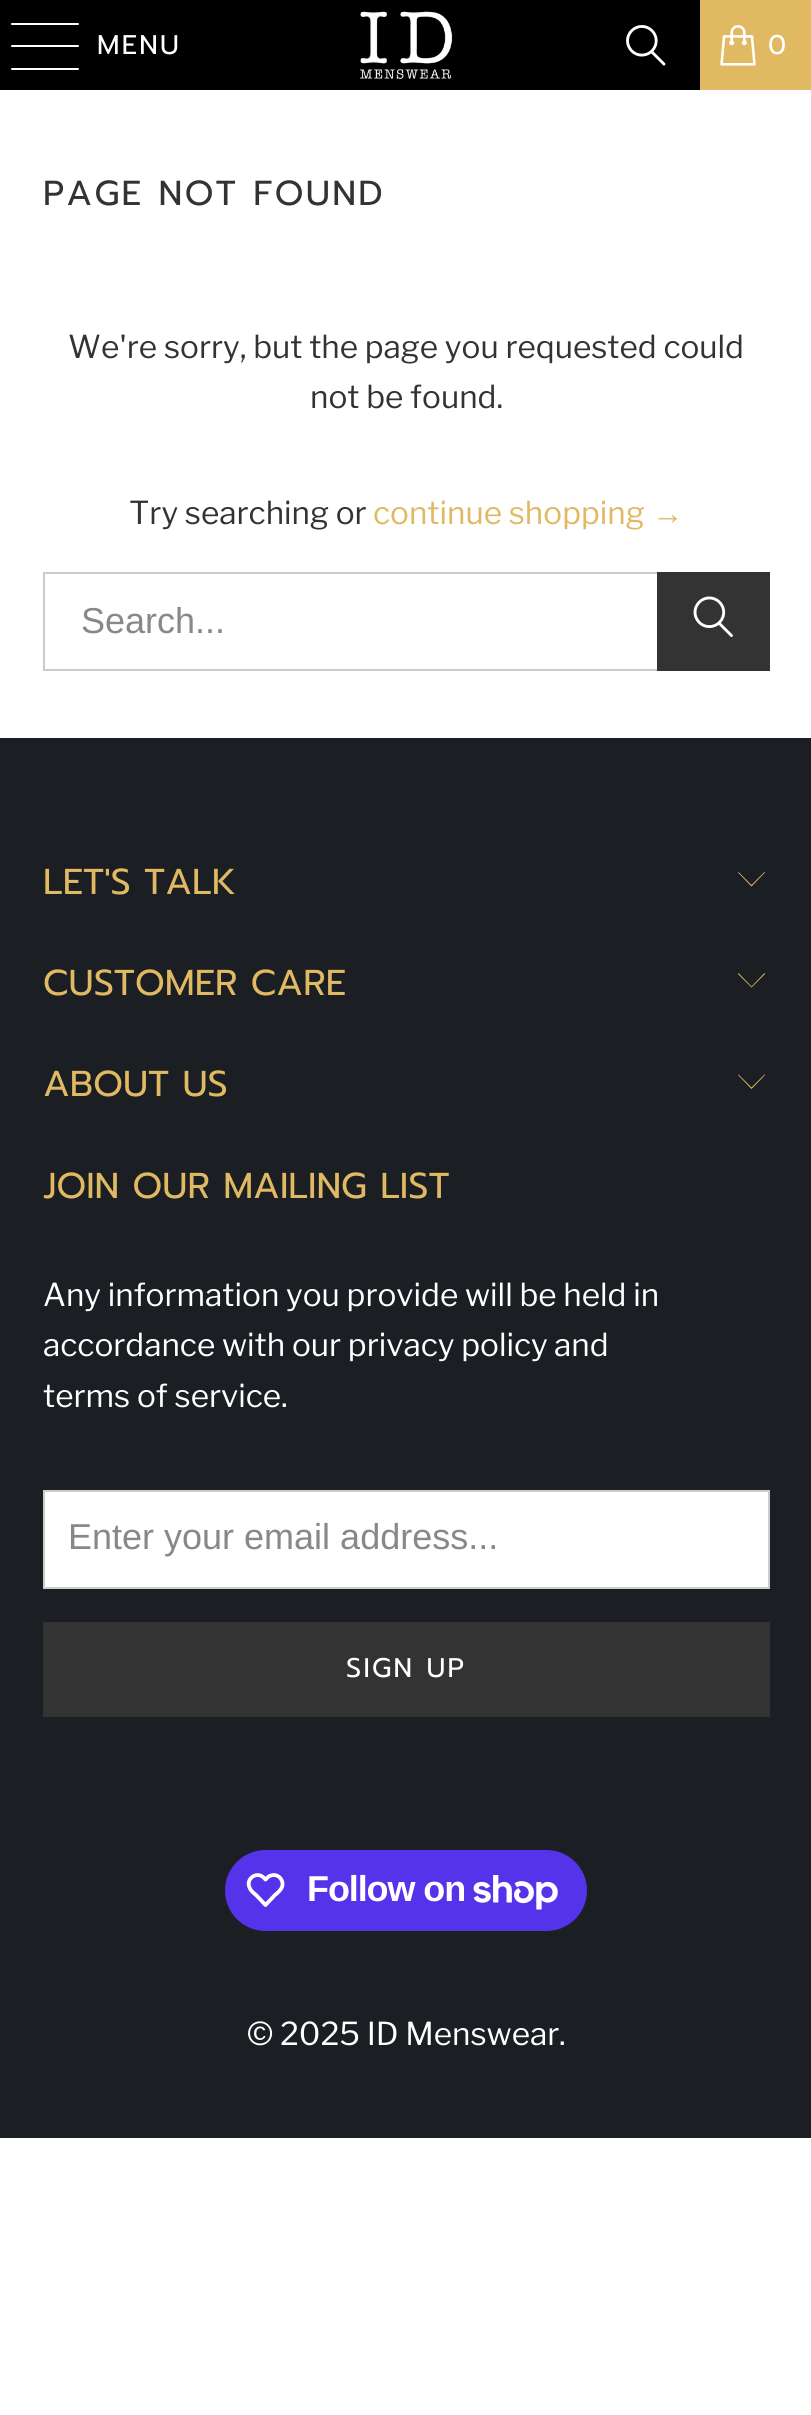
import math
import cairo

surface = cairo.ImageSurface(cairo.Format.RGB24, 811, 2415)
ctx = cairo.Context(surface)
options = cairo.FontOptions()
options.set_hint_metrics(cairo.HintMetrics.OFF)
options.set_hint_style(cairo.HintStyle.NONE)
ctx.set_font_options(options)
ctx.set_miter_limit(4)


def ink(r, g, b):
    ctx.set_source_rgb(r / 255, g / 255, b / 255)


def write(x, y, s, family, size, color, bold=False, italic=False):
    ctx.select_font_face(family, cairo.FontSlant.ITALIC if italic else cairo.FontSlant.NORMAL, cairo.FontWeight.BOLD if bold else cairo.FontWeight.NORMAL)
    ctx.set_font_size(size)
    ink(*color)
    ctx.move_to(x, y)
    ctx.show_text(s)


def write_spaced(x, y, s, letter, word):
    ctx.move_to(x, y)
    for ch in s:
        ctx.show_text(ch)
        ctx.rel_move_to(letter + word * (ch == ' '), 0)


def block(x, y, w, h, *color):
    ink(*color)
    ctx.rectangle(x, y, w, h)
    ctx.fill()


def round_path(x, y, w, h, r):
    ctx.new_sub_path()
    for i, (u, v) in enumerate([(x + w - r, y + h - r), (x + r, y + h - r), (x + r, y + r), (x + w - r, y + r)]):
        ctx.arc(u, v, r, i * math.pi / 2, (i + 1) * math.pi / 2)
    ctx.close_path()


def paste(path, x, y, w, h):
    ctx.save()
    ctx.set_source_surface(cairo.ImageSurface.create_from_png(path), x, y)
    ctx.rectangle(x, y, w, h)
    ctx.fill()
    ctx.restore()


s1 = dict(family="Libre Franklin", size=31.5, color=(51, 51, 51))
s2 = dict(family="Libre Franklin", size=31.5, color=(224, 185, 98))
s3 = dict(family="Liberation Sans", size=31.5, color=(224, 185, 98))
s4 = dict(family="Liberation Sans", size=36, color=(136, 136, 136))
s5 = dict(family="Prompt", size=36, color=(224, 185, 98))
s6 = dict(family="Libre Franklin", size=31.5, color=(255, 255, 255))

ink(255, 255, 255)
ctx.paint()
block(0, 0, 700, 90, 0, 0, 0)
ink(255, 255, 255)
round_path(11, 23, 68, 2, 1)
ctx.fill()
round_path(11, 45, 68, 2, 1)
ctx.fill()
round_path(11, 68, 68, 2, 1)
ctx.fill()
ctx.select_font_face("Prompt")
ctx.set_font_size(27)
write_spaced(97, 54, "MENU", 2.25, 0)
paste("pic1.png", 360, 11, 93, 68)
paste("pic2.png", 626, 25, 40, 41)
block(700, 0, 111, 90, 224, 185, 98)
paste("pic3.png", 720, 25, 36, 41)
ink(255, 255, 255)
write_spaced(768, 54, "0", 2.25, 0)
ctx.set_font_size(34.75)
ink(51, 51, 51)
write_spaced(43, 205, "PAGE NOT FOUND", 2.25, 0)
write(68, 358, "We're sorry, but the page you requested could", **s1)
write(310, 408, "not be found.", **s1)
write(129, 524, "Try searching or", **s1)
write(373, 524, "continue shopping", **s2)
write(652, 524, "→", **s3)
ctx.rectangle(44, 573, 725, 97)
ink(204, 204, 204)
ctx.stroke()
write(81, 633, "Search...", **s4)
block(657, 572, 113, 99, 51, 51, 51)
paste("pic4.png", 693, 596, 40, 41)
block(0, 738, 811, 1400, 27, 31, 35)
write(43, 894, "LET'S TALK", **s5)
ctx.new_path()
ctx.move_to(751.5, 886.5)
ctx.line_to(738, 872.5)
ctx.line_to(738.5, 872)
ctx.line_to(751.5, 885)
ctx.line_to(764.5, 872)
ctx.line_to(765, 872.5)
ctx.close_path()
ctx.fill()
write(43, 995, "CUSTOMER CARE", **s5)
ctx.new_path()
ctx.move_to(751.5, 987.5)
ctx.line_to(738, 974)
ctx.line_to(738.5, 973)
ctx.line_to(751.5, 986.5)
ctx.line_to(764.5, 973)
ctx.line_to(765, 974)
ctx.close_path()
ctx.fill()
write(43, 1096, "ABOUT US", **s5)
ctx.new_path()
ctx.move_to(751.5, 1089)
ctx.line_to(738, 1075)
ctx.line_to(738.5, 1074.5)
ctx.line_to(751.5, 1087.5)
ctx.line_to(764.5, 1074.5)
ctx.line_to(765, 1075)
ctx.close_path()
ctx.fill()
write(43, 1198, "JOIN OUR MAILING LIST", **s5)
write(43, 1306, "Any information you provide will be held in", **s6)
write(43, 1356, "accordance with our privacy policy", **s6)
write(554, 1356, "and", **s6)
write(43, 1407, "terms of service", **s6)
write(281, 1407, ".", **s6)
ctx.rectangle(44, 1491, 725, 97)
ctx.fill_preserve()
ink(204, 204, 204)
ctx.stroke()
write(68, 1549, "Enter your email address...", **s4)
block(43, 1622, 727, 95, 51, 51, 51)
ctx.select_font_face("Prompt")
ctx.set_font_size(27)
ink(255, 255, 255)
write_spaced(346, 1677, "SIGN UP", 2.25, 0)
ink(84, 51, 235)
round_path(225, 1850, 362, 81, 40.5)
ctx.fill()
ctx.new_path()
ctx.move_to(263.5, 1877.5)
ctx.line_to(265.5, 1879.5)
ctx.curve_to(267, 1878, 268.5, 1876, 271, 1875.5)
ctx.curve_to(278, 1873, 284.5, 1880.5, 282, 1887)
ctx.curve_to(280.5, 1890.5, 277.5, 1893, 275, 1895)
ctx.line_to(265.5, 1905)
ctx.line_to(256, 1895)
ctx.curve_to(253.5, 1893, 250.5, 1890.5, 249.5, 1887.5)
ctx.curve_to(245.5, 1878.5, 257, 1871, 263.5, 1877.5)
ctx.close_path()
ink(255, 255, 255)
ctx.set_line_width(3.8)
ctx.set_line_join(cairo.LineJoin.ROUND)
ctx.stroke()
ctx.select_font_face("Liberation Sans", cairo.FontSlant.NORMAL, cairo.FontWeight.BOLD)
ctx.set_font_size(36)
write_spaced(307, 1901, "Follow on", -1.1, 0)
paste("pic5.png", 473, 1875, 85, 35)
write(247, 2045, "© 2025 ID Menswear", **s6)
write(559, 2045, ".", **s6)
surface.write_to_png("screenshot.png")
